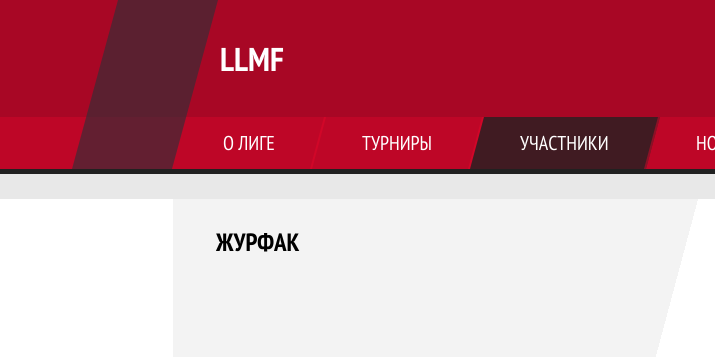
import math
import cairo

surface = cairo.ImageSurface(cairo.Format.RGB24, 715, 357)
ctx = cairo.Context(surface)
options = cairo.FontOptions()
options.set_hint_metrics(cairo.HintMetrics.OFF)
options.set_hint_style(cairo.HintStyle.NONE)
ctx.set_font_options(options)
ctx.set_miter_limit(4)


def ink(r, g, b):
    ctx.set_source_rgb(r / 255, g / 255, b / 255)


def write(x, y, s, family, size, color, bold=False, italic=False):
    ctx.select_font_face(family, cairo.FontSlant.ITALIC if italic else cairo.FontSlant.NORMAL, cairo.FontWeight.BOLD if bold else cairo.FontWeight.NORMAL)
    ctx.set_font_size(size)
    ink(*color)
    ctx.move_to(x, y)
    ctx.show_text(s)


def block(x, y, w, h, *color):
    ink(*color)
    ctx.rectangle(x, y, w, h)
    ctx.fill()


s1 = dict(family="PT Sans Narrow", size=33, color=(255, 255, 255), bold=True)
s2 = dict(family="PT Sans Narrow", size=20, color=(255, 255, 255))
s3 = dict(family="PT Sans Narrow", size=25, color=(0, 0, 0), bold=True)

ink(232, 232, 232)
ctx.paint()
block(0, 0, 715, 117, 168, 7, 37)
block(0, 117, 715, 52, 190, 6, 39)
ctx.set_source_rgba(0.149, 0.196, 0.22, 0.59)
ctx.new_path()
ctx.move_to(118, 0)
ctx.line_to(218, 0)
ctx.line_to(172, 169)
ctx.line_to(72, 169)
ctx.close_path()
ctx.fill()
write(220, 71, "LLMF", **s1)
ink(209, 6, 40)
ctx.new_path()
ctx.move_to(324, 117)
ctx.line_to(326, 117)
ctx.line_to(312, 169)
ctx.line_to(310, 169)
ctx.close_path()
ctx.fill()
write(223, 150, "О ЛИГЕ", **s2)
ink(209, 6, 40)
ctx.new_path()
ctx.move_to(482, 117)
ctx.line_to(484, 117)
ctx.line_to(470, 169)
ctx.line_to(468, 169)
ctx.close_path()
ctx.fill()
write(362, 150, "ТУРНИРЫ", **s2)
ctx.set_source_rgba(0.129, 0.129, 0.129, 0.8)
ctx.new_path()
ctx.move_to(484, 117)
ctx.line_to(660, 117)
ctx.line_to(646, 169)
ctx.line_to(470, 169)
ctx.close_path()
ctx.fill()
ctx.set_source_rgba(0.91, 0.02, 0.165, 0.45)
ctx.new_path()
ctx.move_to(658, 117)
ctx.line_to(660, 117)
ctx.line_to(646, 169)
ctx.line_to(644, 169)
ctx.close_path()
ctx.fill()
write(520, 150, "УЧАСТНИКИ", **s2)
write(696, 150, "НО", **s2)
block(0, 169, 715, 5, 33, 33, 33)
gradient = cairo.LinearGradient(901, 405, 9, 166)
gradient.add_color_stop_rgba(0.27, 1, 1, 1, 1)
gradient.add_color_stop_rgba(0.27, 0.953, 0.953, 0.953, 1)
gradient.add_color_stop_rgba(1, 0.953, 0.953, 0.953, 1)
ctx.set_source(gradient)
ctx.rectangle(173, 199, 542, 158)
ctx.fill()
block(0, 199, 173, 158, 255, 255, 255)
write(216, 251, "ЖУРФАК", **s3)
surface.write_to_png("screenshot.png")
